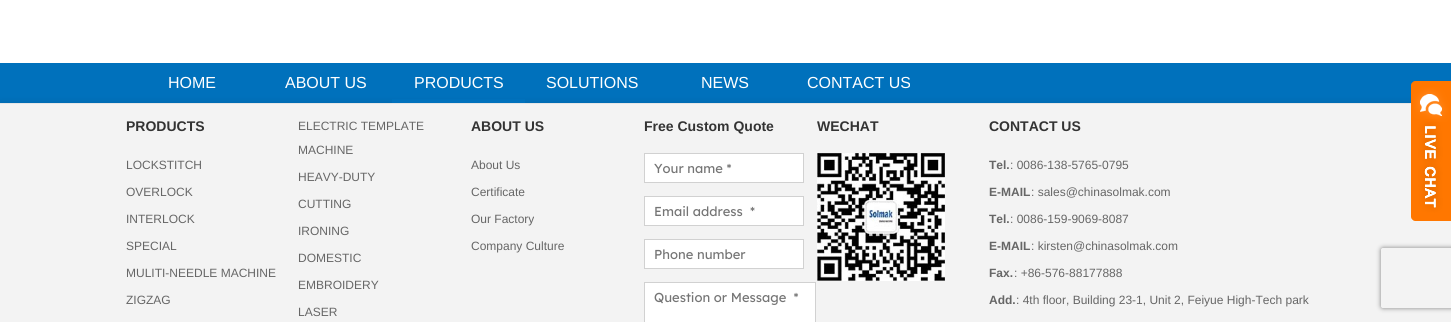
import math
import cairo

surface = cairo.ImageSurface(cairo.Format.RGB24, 1451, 322)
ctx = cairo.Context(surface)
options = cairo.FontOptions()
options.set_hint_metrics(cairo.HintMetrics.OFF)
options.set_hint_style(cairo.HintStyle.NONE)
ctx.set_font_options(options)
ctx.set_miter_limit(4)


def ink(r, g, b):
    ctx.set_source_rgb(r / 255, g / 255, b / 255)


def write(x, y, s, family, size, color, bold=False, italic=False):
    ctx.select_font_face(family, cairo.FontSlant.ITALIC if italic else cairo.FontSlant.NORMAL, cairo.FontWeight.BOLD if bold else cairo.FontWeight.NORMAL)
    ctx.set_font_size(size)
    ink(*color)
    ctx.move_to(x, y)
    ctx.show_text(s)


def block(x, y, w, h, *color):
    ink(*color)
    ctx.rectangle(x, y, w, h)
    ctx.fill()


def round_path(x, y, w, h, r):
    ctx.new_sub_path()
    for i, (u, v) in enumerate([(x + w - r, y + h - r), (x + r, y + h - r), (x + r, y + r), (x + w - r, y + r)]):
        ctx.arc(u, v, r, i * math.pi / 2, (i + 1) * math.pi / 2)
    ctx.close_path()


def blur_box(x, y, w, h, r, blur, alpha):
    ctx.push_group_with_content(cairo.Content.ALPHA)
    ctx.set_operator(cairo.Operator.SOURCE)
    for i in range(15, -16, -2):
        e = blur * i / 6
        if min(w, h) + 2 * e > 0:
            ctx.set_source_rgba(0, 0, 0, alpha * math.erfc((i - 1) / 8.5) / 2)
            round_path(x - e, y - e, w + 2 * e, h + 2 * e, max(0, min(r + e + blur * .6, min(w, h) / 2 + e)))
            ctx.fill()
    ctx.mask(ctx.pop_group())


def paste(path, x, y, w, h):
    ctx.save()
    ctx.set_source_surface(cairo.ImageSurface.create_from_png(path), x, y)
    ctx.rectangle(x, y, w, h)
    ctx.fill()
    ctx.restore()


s1 = dict(family="Liberation Sans", size=16, color=(255, 255, 255))
s2 = dict(family="Liberation Sans", size=14, color=(51, 51, 51), bold=True)
s3 = dict(family="Liberation Sans", size=12, color=(102, 102, 102))
s4 = dict(family="Lexend", size=13, color=(117, 117, 117))
s5 = dict(family="Liberation Sans", size=12, color=(102, 102, 102), bold=True)

ink(255, 255, 255)
ctx.paint()
block(0, 63, 1451, 40, 0, 113, 188)
write(168, 88, "HOME", **s1)
write(285, 88, "ABOUT US", **s1)
ink(0, 0, 0)
blur_box(0, 103, 1451, 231, 0, 4, 0.1)
block(392, 99, 133, 4, 0, 113, 188)
write(414, 88, "PRODUCTS", **s1)
write(546, 88, "SOLUTIONS", **s1)
write(701, 88, "NEWS", **s1)
write(807, 88, "CONTACT US", **s1)
block(0, 104, 1451, 218, 243, 243, 243)
paste("pic1.png", 1411, 81, 40, 140)
block(0, 103, 1411, 1, 229, 229, 229)
write(126, 131, "PRODUCTS", **s2)
write(126, 169, "LOCKSTITCH", **s3)
write(126, 196, "OVERLOCK", **s3)
write(126, 223, "INTERLOCK", **s3)
write(126, 250, "SPECIAL", **s3)
write(126, 277, "MULITI-NEEDLE MACHINE", **s3)
write(126, 304, "ZIGZAG", **s3)
write(298, 130, "ELECTRIC TEMPLATE", **s3)
write(298, 154, "MACHINE", **s3)
write(298, 181, "HEAVY-DUTY", **s3)
write(298, 208, "CUTTING", **s3)
write(298, 235, "IRONING", **s3)
write(298, 262, "DOMESTIC", **s3)
write(298, 289, "EMBROIDERY", **s3)
write(298, 316, "LASER", **s3)
write(471, 131, "ABOUT US", **s2)
write(471, 169, "About Us", **s3)
write(471, 196, "Certificate", **s3)
write(471, 223, "Our Factory", **s3)
write(471, 250, "Company Culture", **s3)
write(644, 131, "Free Custom Quote", **s2)
ink(255, 255, 255)
ctx.rectangle(644.5, 153.5, 159, 29)
ctx.fill_preserve()
ink(209, 209, 209)
ctx.set_line_width(1)
ctx.stroke()
write(654, 173, "Your name *", **s4)
ink(255, 255, 255)
ctx.rectangle(644.5, 196.5, 159, 29)
ctx.fill_preserve()
ink(209, 209, 209)
ctx.stroke()
write(654, 216, "Email address  *", **s4)
ink(255, 255, 255)
ctx.rectangle(644.5, 239.5, 159, 29)
ctx.fill_preserve()
ink(209, 209, 209)
ctx.stroke()
write(654, 259, "Phone number", **s4)
ink(255, 255, 255)
ctx.rectangle(644.5, 282.5, 171, 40)
ctx.fill_preserve()
ink(209, 209, 209)
ctx.stroke()
write(654, 302, "Question or Message  *", **s4)
write(817, 131, "WECHAT", **s2)
paste("pic2.png", 817, 153, 128, 128)
write(989, 131, "CONTACT US", **s2)
write(989, 169, "Tel.", **s5)
write(1010, 169, ": 0086-138-5765-0795", **s3)
write(989, 196, "E-MAIL", **s5)
write(1031, 196, ": sales@chinasolmak.com", **s3)
write(989, 223, "Tel.", **s5)
write(1010, 223, ": 0086-159-9069-8087", **s3)
write(989, 250, "E-MAIL", **s5)
write(1031, 250, ": kirsten@chinasolmak.com", **s3)
write(989, 277, "Fax.", **s5)
write(1014, 277, ": +86-576-88177888", **s3)
write(989, 304, "Add.", **s5)
write(1016, 304, ": 4th floor, Building 23-1, Unit 2, Feiyue High-Tech park", **s3)
ctx.save()
ctx.set_fill_rule(cairo.FillRule.EVEN_ODD)
ctx.new_path()
ctx.move_to(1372, 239)
ctx.line_to(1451, 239)
ctx.line_to(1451, 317)
ctx.line_to(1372, 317)
ctx.close_path()
ctx.move_to(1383, 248)
ctx.line_to(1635, 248)
ctx.curve_to(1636, 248, 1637, 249, 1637, 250)
ctx.line_to(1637, 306)
ctx.curve_to(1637, 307, 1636, 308, 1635, 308)
ctx.line_to(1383, 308)
ctx.curve_to(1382, 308, 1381, 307, 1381, 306)
ctx.line_to(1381, 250)
ctx.curve_to(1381, 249, 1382, 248, 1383, 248)
ctx.close_path()
ctx.clip()
ink(128, 128, 128)
blur_box(1381, 248, 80, 60, 2, 2.5, 1)
ctx.restore()
surface.write_to_png("screenshot.png")
